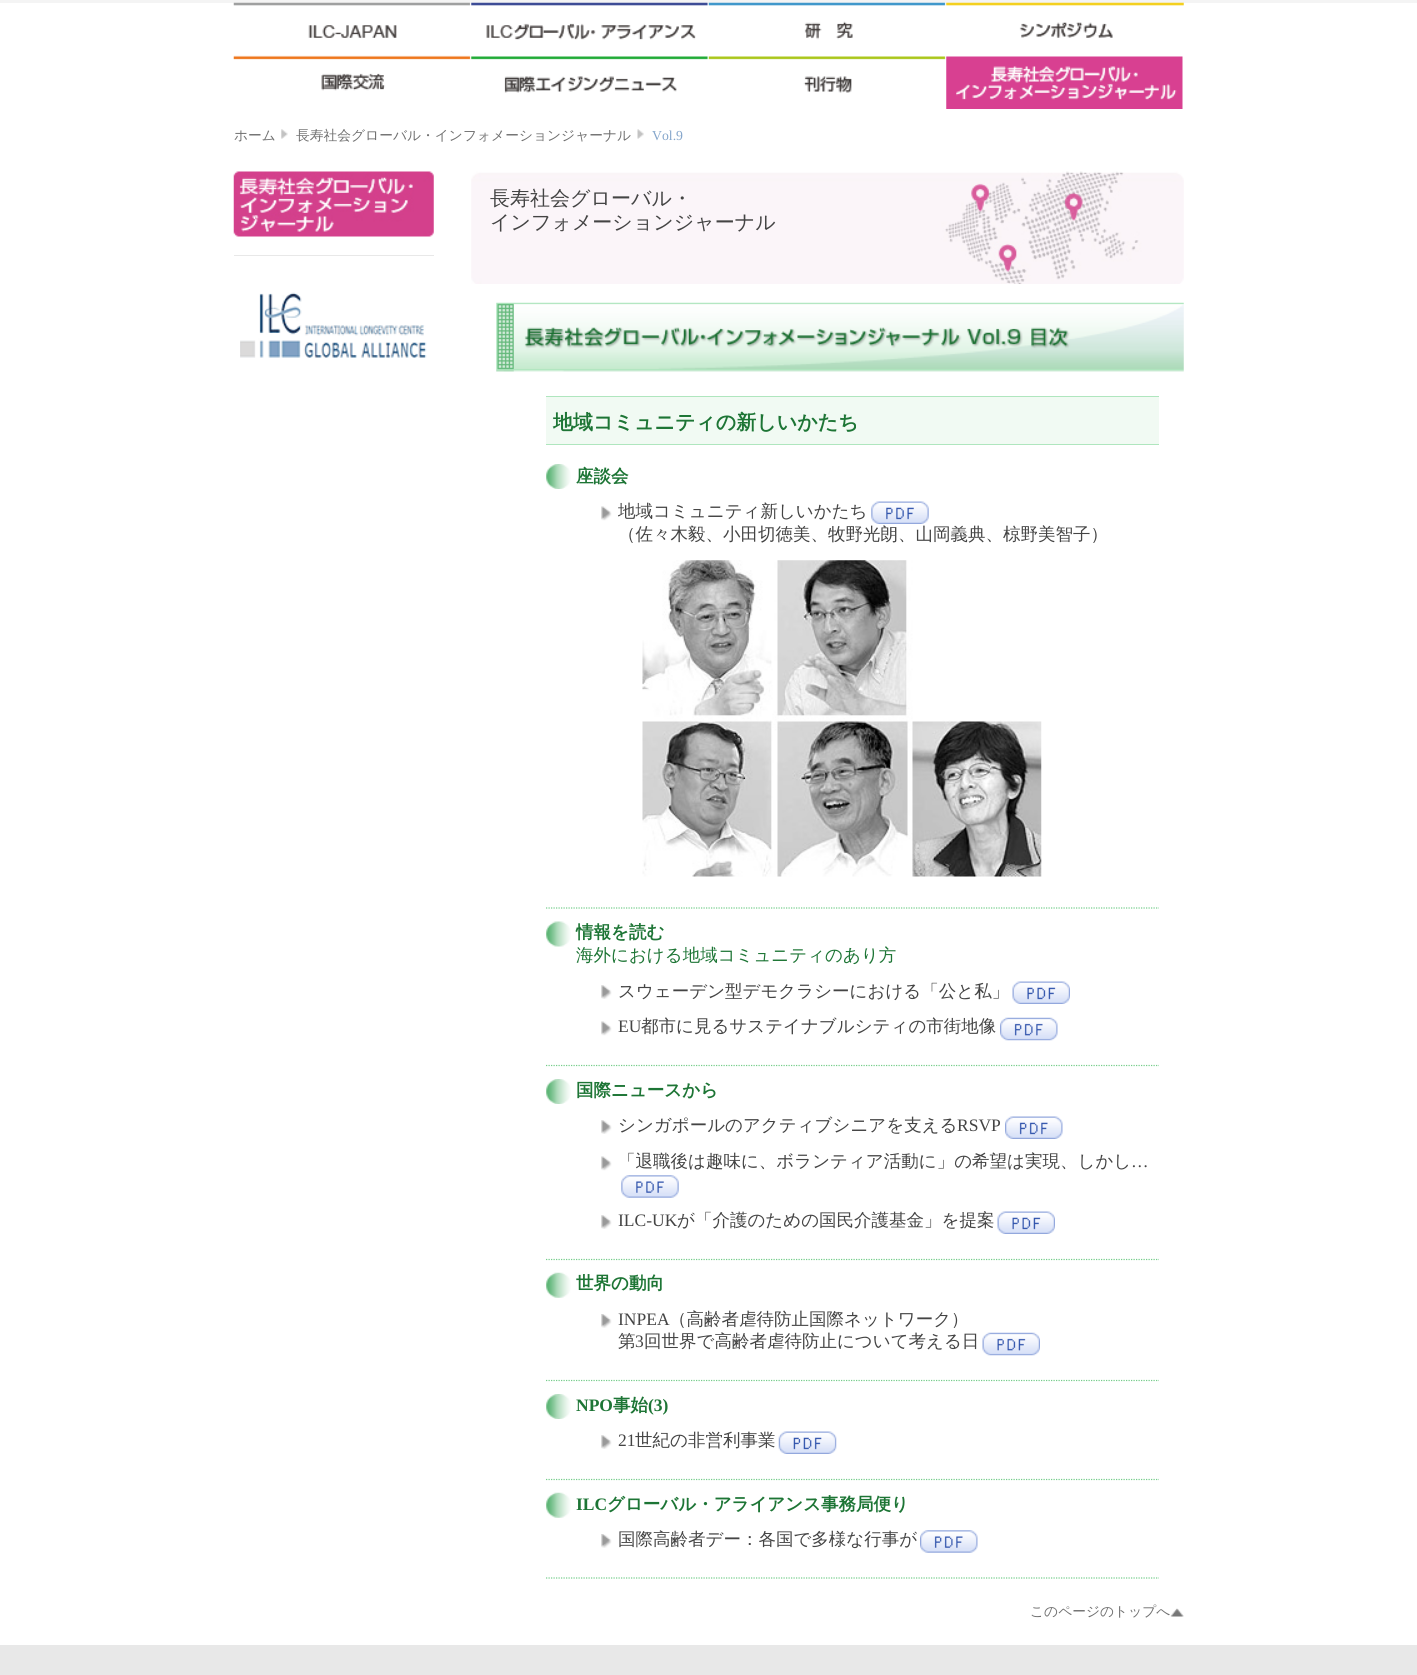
import math
import cairo

surface = cairo.ImageSurface(cairo.Format.RGB24, 1417, 1675)
ctx = cairo.Context(surface)
options = cairo.FontOptions()
options.set_hint_metrics(cairo.HintMetrics.OFF)
options.set_hint_style(cairo.HintStyle.NONE)
ctx.set_font_options(options)
ctx.set_miter_limit(4)


def ink(r, g, b):
    ctx.set_source_rgb(r / 255, g / 255, b / 255)


def write(x, y, s, family, size, color, bold=False, italic=False):
    ctx.select_font_face(family, cairo.FontSlant.ITALIC if italic else cairo.FontSlant.NORMAL, cairo.FontWeight.BOLD if bold else cairo.FontWeight.NORMAL)
    ctx.set_font_size(size)
    ink(*color)
    ctx.move_to(x, y)
    ctx.show_text(s)


def block(x, y, w, h, *color):
    ink(*color)
    ctx.rectangle(x, y, w, h)
    ctx.fill()


def paste(path, x, y, w, h):
    ctx.save()
    ctx.set_source_surface(cairo.ImageSurface.create_from_png(path), x, y)
    ctx.rectangle(x, y, w, h)
    ctx.fill()
    ctx.restore()


s1 = dict(family="WenQuanYi Zen Hei Medium", size=13.75, color=(112, 112, 112))
s2 = dict(family="Liberation Serif", size=13.75, color=(133, 166, 203))
s3 = dict(family="WenQuanYi Zen Hei Medium", size=20, color=(68, 68, 68))
s4 = dict(family="WenQuanYi Zen Hei", size=20, color=(29, 117, 53), bold=True)
s5 = dict(family="WenQuanYi Zen Hei", size=17.5, color=(29, 117, 53), bold=True)
s6 = dict(family="WenQuanYi Zen Hei Medium", size=17.5, color=(68, 68, 68))
s7 = dict(family="WenQuanYi Zen Hei Medium", size=17.5, color=(29, 117, 53))
s8 = dict(family="Liberation Serif", size=17.5, color=(68, 68, 68))
s9 = dict(family="Liberation Serif", size=17.5, color=(29, 117, 53), bold=True)

ink(255, 255, 255)
ctx.paint()
block(0, 0, 1417, 3, 244, 244, 244)
paste("pic1.png", 233, 2, 238, 36)
paste("pic2.png", 471, 2, 237, 38)
paste("pic3.png", 708, 2, 238, 38)
paste("pic4.png", 946, 2, 238, 36)
paste("pic5.png", 233, 55, 238, 36)
paste("pic6.png", 471, 56, 237, 37)
paste("pic7.png", 708, 56, 238, 37)
paste("pic8.png", 946, 56, 237, 53)
write(234, 140, "ホーム", **s1)
paste("pic9.png", 281, 129, 7, 10)
write(296, 140, "長寿社会グローバル・インフォメーションジャーナル", **s1)
paste("pic10.png", 637, 129, 7, 10)
write(652, 140, "Vol.9", **s2)
paste("pic11.png", 233, 171, 201, 66)
block(234, 255, 200, 1, 232, 232, 232)
paste("pic12.png", 240, 292, 187, 66)
paste("pic13.png", 471, 171, 713, 113)
write(490, 205, "長寿社会グローバル・", **s3)
write(490, 229, "インフォメーションジャーナル", **s3)
paste("pic14.png", 496, 302, 688, 70)
block(546, 397, 613, 47, 241, 250, 243)
block(546, 396, 613, 1, 175, 230, 190)
block(546, 444, 613, 1, 175, 230, 190)
write(553, 429, "地域コミュニティの新しいかたち", **s4)
paste("pic15.png", 546, 464, 25, 25)
ctx.new_path()
ctx.move_to(546, 908)
ctx.line_to(1159, 908)
ink(116, 205, 138)
ctx.set_line_width(1.2)
ctx.set_dash([1.25, 1.25])
ctx.stroke()
write(576, 482, "座談会", **s5)
paste("pic16.png", 601, 506, 11, 15)
write(618, 517, "地域コミュニティ新しいかたち", **s6)
paste("pic17.png", 871, 501, 58, 23)
write(618, 540, "（佐々木毅、小田切徳美、牧野光朗、山岡義典、椋野美智子）", **s6)
paste("pic18.png", 642, 560, 400, 317)
paste("pic19.png", 546, 921, 25, 26)
ctx.new_path()
ctx.move_to(546, 1065.5)
ctx.line_to(1159, 1065.5)
ink(116, 205, 138)
ctx.stroke()
write(576, 938, "情報を読む", **s5)
write(576, 961, "海外における地域コミュニティのあり方", **s7)
paste("pic20.png", 601, 985, 11, 14)
write(618, 997, "スウェーデン型デモクラシーにおける「公と私」", **s6)
paste("pic21.png", 1012, 981, 58, 23)
paste("pic16.png", 601, 1021, 11, 15)
write(618, 1032, "EU", **s8)
write(641, 1032, "都市に見るサステイナブルシティの市街地像", **s6)
paste("pic22.png", 1000, 1017, 58, 24)
paste("pic15.png", 546, 1079, 25, 25)
ctx.new_path()
ctx.move_to(546, 1259.5)
ctx.line_to(1159, 1259.5)
ink(116, 205, 138)
ctx.stroke()
write(576, 1096, "国際ニュースから", **s5)
paste("pic20.png", 601, 1120, 11, 14)
write(618, 1131, "シンガポールのアクティブシニアを支える", **s6)
write(957, 1131, "RSVP", **s8)
paste("pic23.png", 1005, 1116, 58, 23)
paste("pic16.png", 601, 1156, 11, 15)
write(618, 1167, "「退職後は趣味に、ボランティア活動に」の希望は実現、しかし", **s6)
write(1131, 1167, "…", **s8)
paste("pic24.png", 621, 1175, 58, 23)
paste("pic20.png", 601, 1215, 11, 14)
write(618, 1226, "ILC-UK", **s8)
write(677, 1226, "が「介護のための国民介護基金」を提案", **s6)
paste("pic25.png", 997, 1211, 58, 23)
paste("pic26.png", 546, 1272, 25, 26)
ctx.new_path()
ctx.move_to(546, 1380.5)
ctx.line_to(1159, 1380.5)
ink(116, 205, 138)
ctx.stroke()
write(576, 1289, "世界の動向", **s5)
paste("pic27.png", 601, 1314, 11, 14)
write(618, 1325, "INPEA", **s8)
write(669, 1325, "（高齢者虐待防止国際ネットワーク）", **s6)
write(618, 1347, "第", **s6)
write(635, 1347, "3", **s8)
write(644, 1347, "回世界で高齢者虐待防止について考える日", **s6)
paste("pic28.png", 982, 1332, 58, 24)
paste("pic29.png", 546, 1394, 25, 25)
ctx.new_path()
ctx.move_to(546, 1479.5)
ctx.line_to(1159, 1479.5)
ink(116, 205, 138)
ctx.stroke()
write(576, 1411, "NPO", **s9)
write(613, 1411, "事始", **s5)
write(648, 1411, "(3)", **s9)
paste("pic20.png", 601, 1435, 11, 14)
write(618, 1446, "21", **s8)
write(635, 1446, "世紀の非営利事業", **s6)
paste("pic30.png", 778, 1431, 59, 23)
paste("pic26.png", 546, 1492, 25, 26)
ctx.new_path()
ctx.move_to(546, 1578)
ctx.line_to(1159, 1578)
ink(116, 205, 138)
ctx.stroke()
write(576, 1510, "ILC", **s9)
write(607, 1510, "グローバル・アライアンス事務局便り", **s5)
paste("pic27.png", 601, 1534, 11, 14)
write(618, 1545, "国際高齢者デー：各国で多様な行事が", **s6)
paste("pic31.png", 920, 1530, 58, 23)
paste("pic32.png", 1170, 1608, 14, 9)
write(1030, 1616, "このページのトップへ", **s1)
block(0, 1645, 1417, 30, 232, 232, 232)
surface.write_to_png("screenshot.png")
